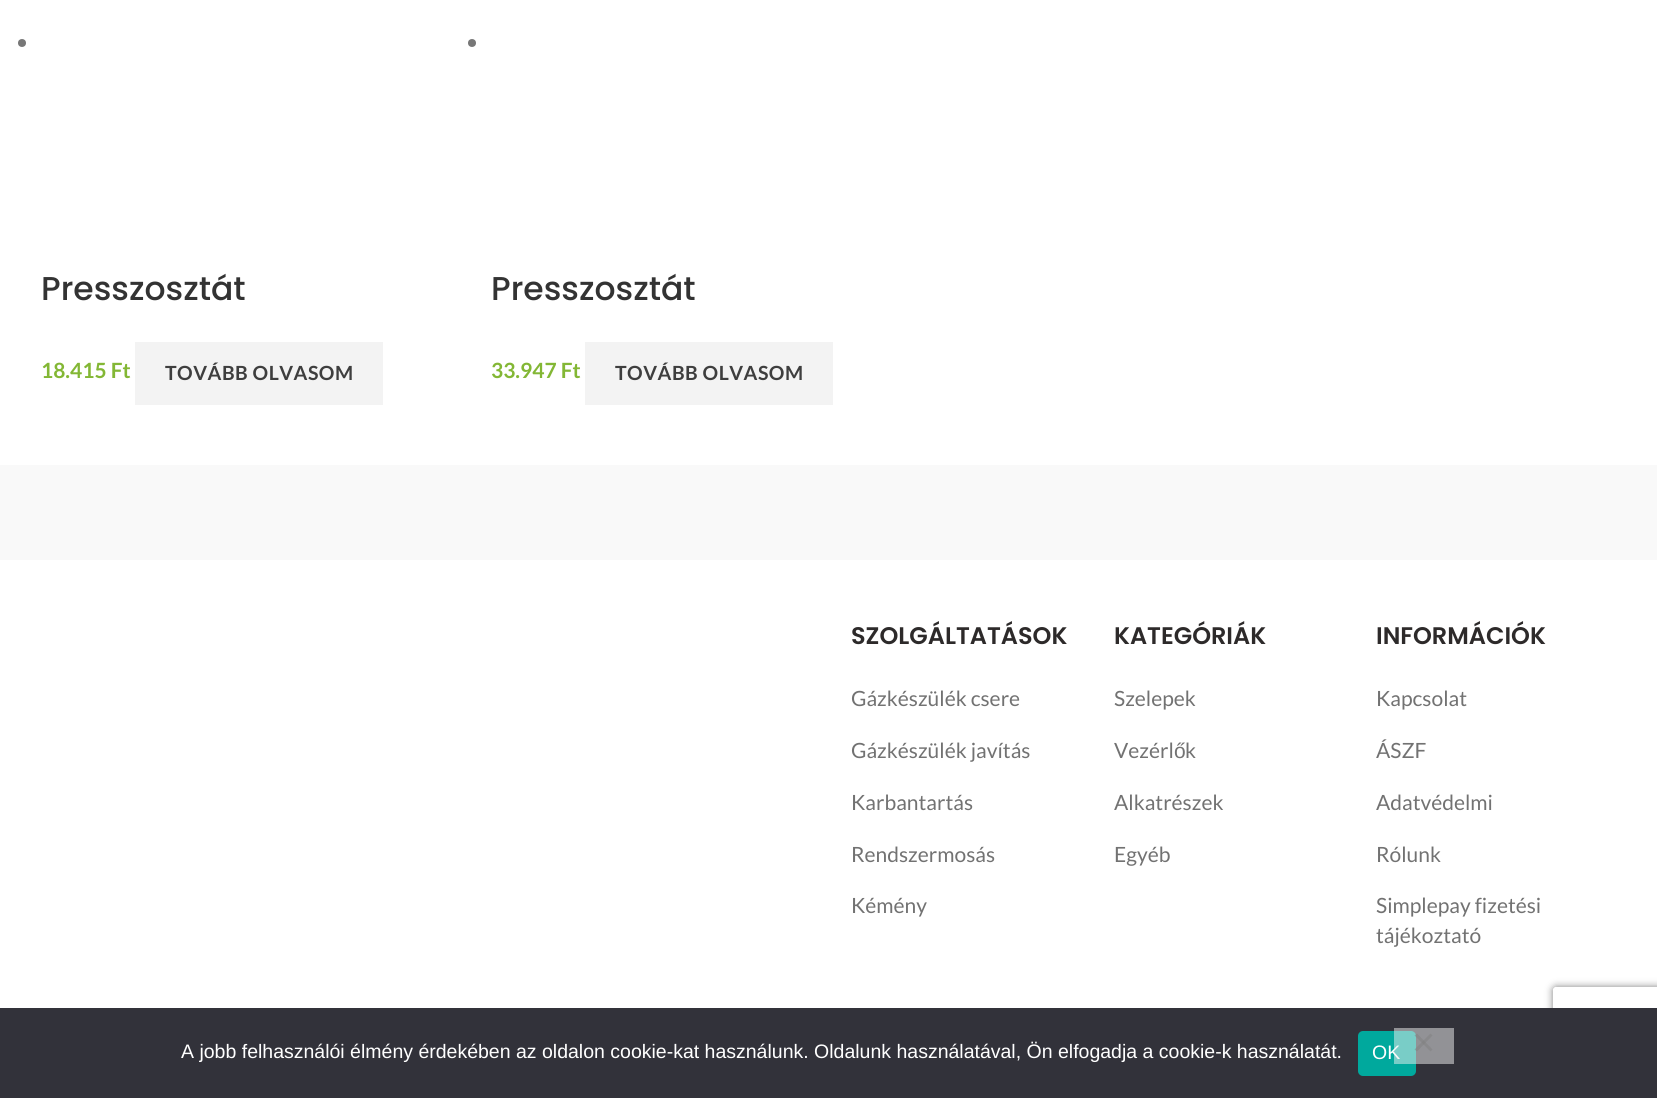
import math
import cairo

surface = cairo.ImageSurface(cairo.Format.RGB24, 1657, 1098)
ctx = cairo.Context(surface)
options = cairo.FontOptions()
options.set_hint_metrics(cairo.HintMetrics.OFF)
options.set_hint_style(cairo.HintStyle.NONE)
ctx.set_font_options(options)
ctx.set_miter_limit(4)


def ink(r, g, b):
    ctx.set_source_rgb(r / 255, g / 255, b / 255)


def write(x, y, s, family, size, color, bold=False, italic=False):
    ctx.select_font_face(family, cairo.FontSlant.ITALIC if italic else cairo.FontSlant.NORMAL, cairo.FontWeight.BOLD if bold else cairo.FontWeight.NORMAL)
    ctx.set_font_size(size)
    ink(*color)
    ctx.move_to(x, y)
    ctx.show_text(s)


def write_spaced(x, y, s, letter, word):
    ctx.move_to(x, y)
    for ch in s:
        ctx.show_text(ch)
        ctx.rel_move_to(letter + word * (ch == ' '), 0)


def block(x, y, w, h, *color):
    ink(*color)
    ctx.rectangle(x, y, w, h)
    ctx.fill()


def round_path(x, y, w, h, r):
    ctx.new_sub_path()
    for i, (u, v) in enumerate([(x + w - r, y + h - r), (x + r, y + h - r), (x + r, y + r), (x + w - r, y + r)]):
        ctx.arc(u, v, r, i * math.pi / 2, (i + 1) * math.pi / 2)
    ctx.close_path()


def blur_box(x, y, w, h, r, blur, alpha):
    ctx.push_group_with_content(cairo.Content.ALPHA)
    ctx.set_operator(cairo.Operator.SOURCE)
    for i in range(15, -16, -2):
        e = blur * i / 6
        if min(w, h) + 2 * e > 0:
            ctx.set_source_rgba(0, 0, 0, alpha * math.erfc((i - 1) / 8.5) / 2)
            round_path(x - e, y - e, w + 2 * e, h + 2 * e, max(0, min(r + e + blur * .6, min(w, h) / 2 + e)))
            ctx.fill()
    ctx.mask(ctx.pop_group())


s1 = dict(family="Poppins Medium", size=33, color=(51, 51, 51))
s2 = dict(family="Lato", size=21, color=(131, 183, 53), bold=True)
s3 = dict(family="Poppins SemiBold", size=24, color=(45, 42, 42))
s4 = dict(family="Lato", size=21, color=(114, 114, 114))
s5 = dict(family="Liberation Sans", size=21, color=(114, 114, 114))
s6 = dict(family="Liberation Sans", size=19.5, color=(255, 255, 255))

ink(255, 255, 255)
ctx.paint()
ink(119, 119, 119)
ctx.arc(22, 43, 4, 0, 2 * math.pi)
ctx.fill()
write(41, 300, "Presszosztát", **s1)
write(41, 378, "18.415 Ft", **s2)
block(135, 342, 248, 63, 243, 243, 243)
ctx.set_font_size(19.5)
ink(62, 62, 62)
write_spaced(165, 380, "TOVÁBB OLVASOM", 0.5, 0)
ink(119, 119, 119)
ctx.new_path()
ctx.arc(472, 43, 4, 0, 2 * math.pi)
ctx.fill()
write(491, 300, "Presszosztát", **s1)
write(491, 378, "33.947 Ft", **s2)
block(585, 342, 248, 63, 243, 243, 243)
ctx.set_font_size(19.5)
ink(62, 62, 62)
write_spaced(615, 380, "TOVÁBB OLVASOM", 0.5, 0)
block(0, 465, 1657, 95, 249, 249, 249)
write(851, 644, "SZOLGÁLTATÁSOK", **s3)
write(851, 706, "Gázkészülék csere", **s4)
write(851, 758, "Gázkészülék javítás", **s4)
write(851, 810, "Karbantartás", **s4)
write(851, 862, "Rendszermosás", **s4)
write(851, 913, "Kémény", **s4)
write(1114, 644, "KATEGÓRIÁK", **s3)
write(1114, 706, "Szelepek", **s4)
write(1114, 758, "Vezérl", **s4)
write(1174, 758, "ő", **s5)
write(1185, 758, "k", **s4)
write(1114, 810, "Alkatrészek", **s4)
write(1114, 862, "Egyéb", **s4)
write(1376, 644, "INFORMÁCIÓK", **s3)
write(1376, 706, "Kapcsolat", **s4)
write(1376, 758, "ÁSZF", **s4)
write(1376, 810, "Adatvédelmi", **s4)
write(1376, 862, "Rólunk", **s4)
write(1376, 913, "Simplepay fizetési", **s4)
write(1376, 943, "tájékoztató", **s4)
ctx.save()
ctx.set_fill_rule(cairo.FillRule.EVEN_ODD)
ctx.new_path()
ctx.move_to(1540, 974)
ctx.line_to(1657, 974)
ctx.line_to(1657, 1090)
ctx.line_to(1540, 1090)
ctx.close_path()
ctx.move_to(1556, 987)
ctx.line_to(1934, 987)
ctx.curve_to(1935.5, 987, 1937, 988.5, 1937, 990)
ctx.line_to(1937, 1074)
ctx.curve_to(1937, 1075.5, 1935.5, 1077, 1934, 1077)
ctx.line_to(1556, 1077)
ctx.curve_to(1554.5, 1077, 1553, 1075.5, 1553, 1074)
ctx.line_to(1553, 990)
ctx.curve_to(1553, 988.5, 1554.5, 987, 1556, 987)
ctx.close_path()
ctx.clip()
ink(128, 128, 128)
blur_box(1553, 987, 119, 90, 3, 4, 1)
ctx.restore()
block(0, 1008, 1657, 90, 50, 50, 58)
write(181, 1058, "A jobb felhasználói élmény érdekében az oldalon cookie-kat használunk. Oldalunk használatával, Ön elfogadja a cookie-k használatát.", **s6)
ink(0, 169, 157)
round_path(1358, 1031, 58, 45, 5)
ctx.fill()
write(1372, 1059, "OK", **s6)
ctx.set_source_rgba(0.953, 0.953, 0.953, 0.5)
ctx.rectangle(1394, 1028, 60, 36)
ctx.fill()
ctx.set_source_rgba(0.502, 0.502, 0.502, 0.5)
ctx.new_path()
ctx.move_to(1430.5, 1033.5)
ctx.line_to(1432.5, 1035.5)
ctx.line_to(1417, 1051.5)
ctx.line_to(1414.5, 1049.5)
ctx.close_path()
ctx.fill()
ctx.new_path()
ctx.move_to(1414.5, 1035.5)
ctx.line_to(1417, 1033.5)
ctx.line_to(1432.5, 1049.5)
ctx.line_to(1430.5, 1051.5)
ctx.close_path()
ctx.fill()
surface.write_to_png("screenshot.png")
